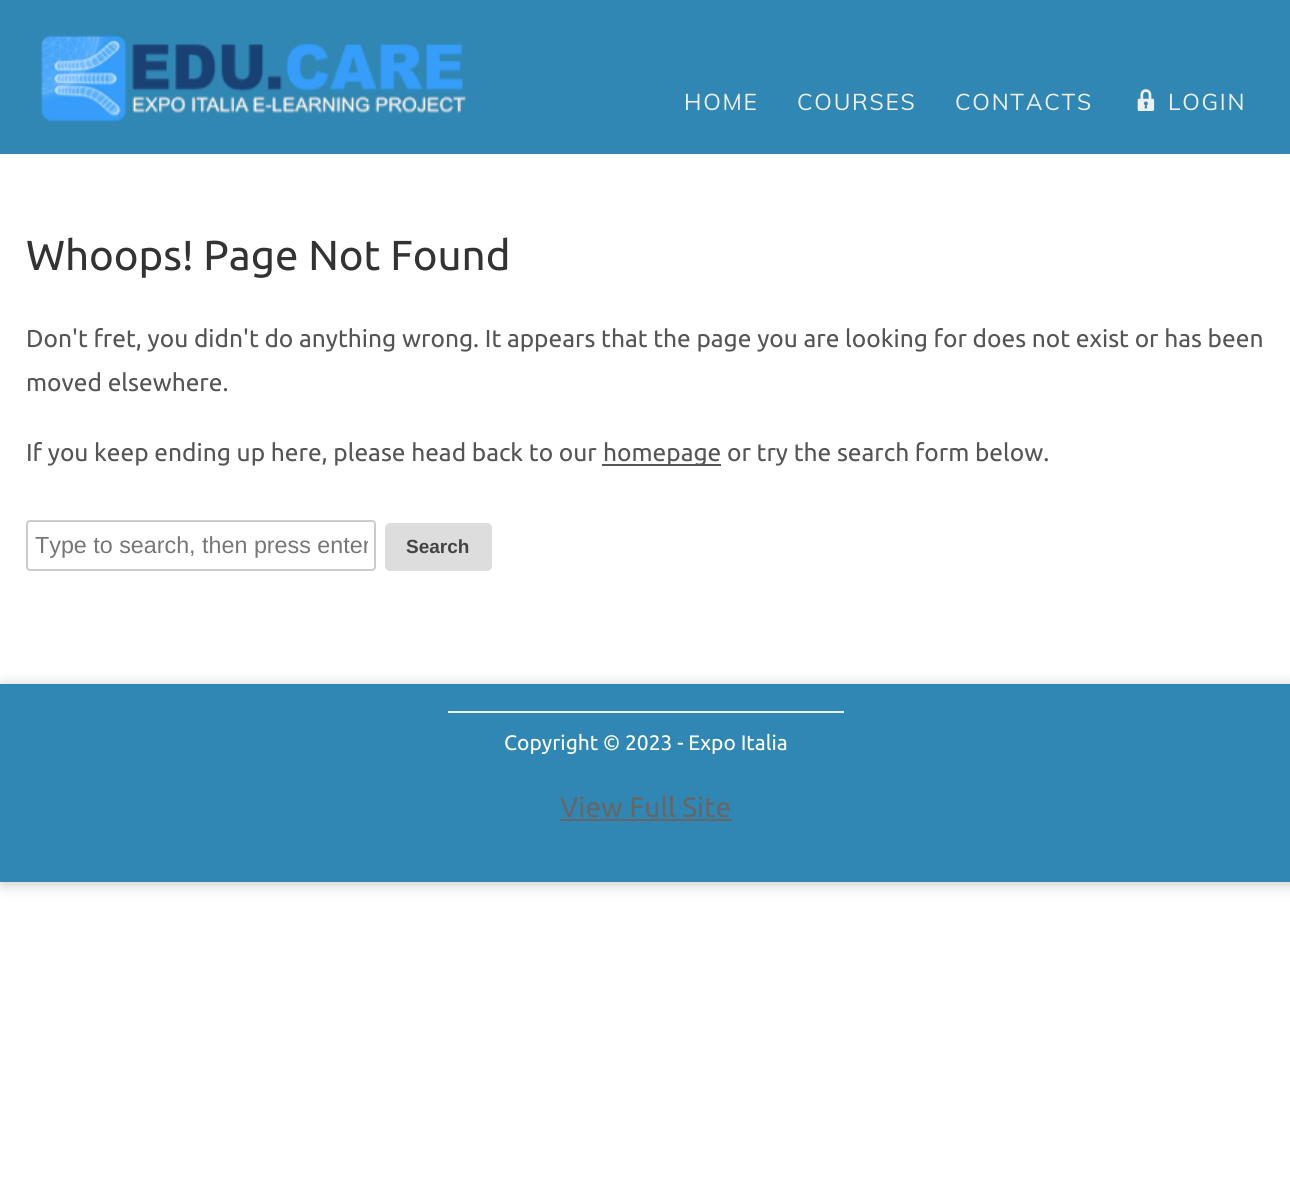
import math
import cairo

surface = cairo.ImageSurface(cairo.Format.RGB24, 1290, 1204)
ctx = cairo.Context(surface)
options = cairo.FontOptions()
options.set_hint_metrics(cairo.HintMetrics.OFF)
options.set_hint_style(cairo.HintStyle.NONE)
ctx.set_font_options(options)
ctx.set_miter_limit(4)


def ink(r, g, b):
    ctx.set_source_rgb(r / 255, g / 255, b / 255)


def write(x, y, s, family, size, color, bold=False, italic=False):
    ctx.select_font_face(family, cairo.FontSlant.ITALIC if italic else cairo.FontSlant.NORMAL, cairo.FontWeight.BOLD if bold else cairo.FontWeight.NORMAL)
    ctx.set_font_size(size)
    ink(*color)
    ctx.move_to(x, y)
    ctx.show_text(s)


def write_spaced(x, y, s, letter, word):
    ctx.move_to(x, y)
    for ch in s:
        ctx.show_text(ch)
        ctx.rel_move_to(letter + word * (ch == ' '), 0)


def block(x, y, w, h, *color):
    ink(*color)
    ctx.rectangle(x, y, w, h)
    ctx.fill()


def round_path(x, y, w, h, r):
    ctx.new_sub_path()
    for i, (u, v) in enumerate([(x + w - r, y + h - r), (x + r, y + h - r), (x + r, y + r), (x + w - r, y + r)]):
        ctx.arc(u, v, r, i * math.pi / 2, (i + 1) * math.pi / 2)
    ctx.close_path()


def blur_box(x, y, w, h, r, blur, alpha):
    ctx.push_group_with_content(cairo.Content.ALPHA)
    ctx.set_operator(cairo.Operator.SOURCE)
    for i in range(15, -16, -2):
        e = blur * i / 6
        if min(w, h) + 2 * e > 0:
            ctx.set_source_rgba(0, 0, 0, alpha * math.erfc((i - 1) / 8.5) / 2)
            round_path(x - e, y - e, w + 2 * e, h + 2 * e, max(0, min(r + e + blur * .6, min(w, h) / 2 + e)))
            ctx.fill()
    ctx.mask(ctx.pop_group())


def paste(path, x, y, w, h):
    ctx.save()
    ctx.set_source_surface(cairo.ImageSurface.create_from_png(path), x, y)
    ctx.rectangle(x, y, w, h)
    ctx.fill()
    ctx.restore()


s1 = dict(family="Ubuntu", size=42, color=(51, 51, 51))
s2 = dict(family="Ubuntu", size=24.5, color=(85, 85, 85))
s3 = dict(family="Liberation Sans", size=23.3, color=(119, 119, 119))
s4 = dict(family="Liberation Sans", size=19, color=(68, 68, 68), bold=True)
s5 = dict(family="Ubuntu", size=21, color=(255, 255, 255))
s6 = dict(family="Ubuntu", size=28, color=(102, 102, 102))

ink(255, 255, 255)
ctx.paint()
block(0, 0, 1290, 154, 48, 135, 179)
paste("pic1.png", 41, 35, 425, 87)
ctx.select_font_face("Muli")
ctx.set_font_size(22.75)
ink(238, 238, 238)
write_spaced(684, 110, "HOME", 1.75, 0)
write_spaced(797, 110, "COURSES", 1.75, 0)
write_spaced(955, 110, "CONTACTS", 1.75, 0)
paste("pic2.png", 1137, 89, 18, 22)
write_spaced(1168, 110, "LOGIN", 1.75, 0)
write(26, 270, "Whoops! Page Not Found", **s1)
write(26, 347, "Don't fret, you didn't do anything wrong. It appears that the page you are looking for does not exist or has been", **s2)
write(26, 391, "moved elsewhere.", **s2)
write(26, 461, "If you keep ending up here, please head back to our", **s2)
block(602, 464, 119, 2, 85, 85, 85)
write(603, 461, "homepage or try the search form below.", **s2)
round_path(27, 521, 348, 49, 3)
ink(204, 204, 204)
ctx.stroke()
ctx.save()
ctx.rectangle(35, 532, 333, 26)
ctx.clip()
write(35, 553, "Type to search, then press enter", **s3)
ctx.restore()
ink(221, 221, 221)
round_path(385, 523, 107, 48, 5)
ctx.fill()
write(406, 553, "Search", **s4)
ink(199, 199, 199)
blur_box(2, 686, 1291, 198, 0, 7, 1)
block(0, 684, 1290, 198, 48, 135, 179)
block(448, 711, 396, 2, 238, 238, 238)
write(504, 750, "Copyright © 2023 - Expo Italia", **s5)
write(560, 817, "View Full Site", **s6)
block(560, 819, 172, 2, 102, 102, 102)
surface.write_to_png("screenshot.png")
